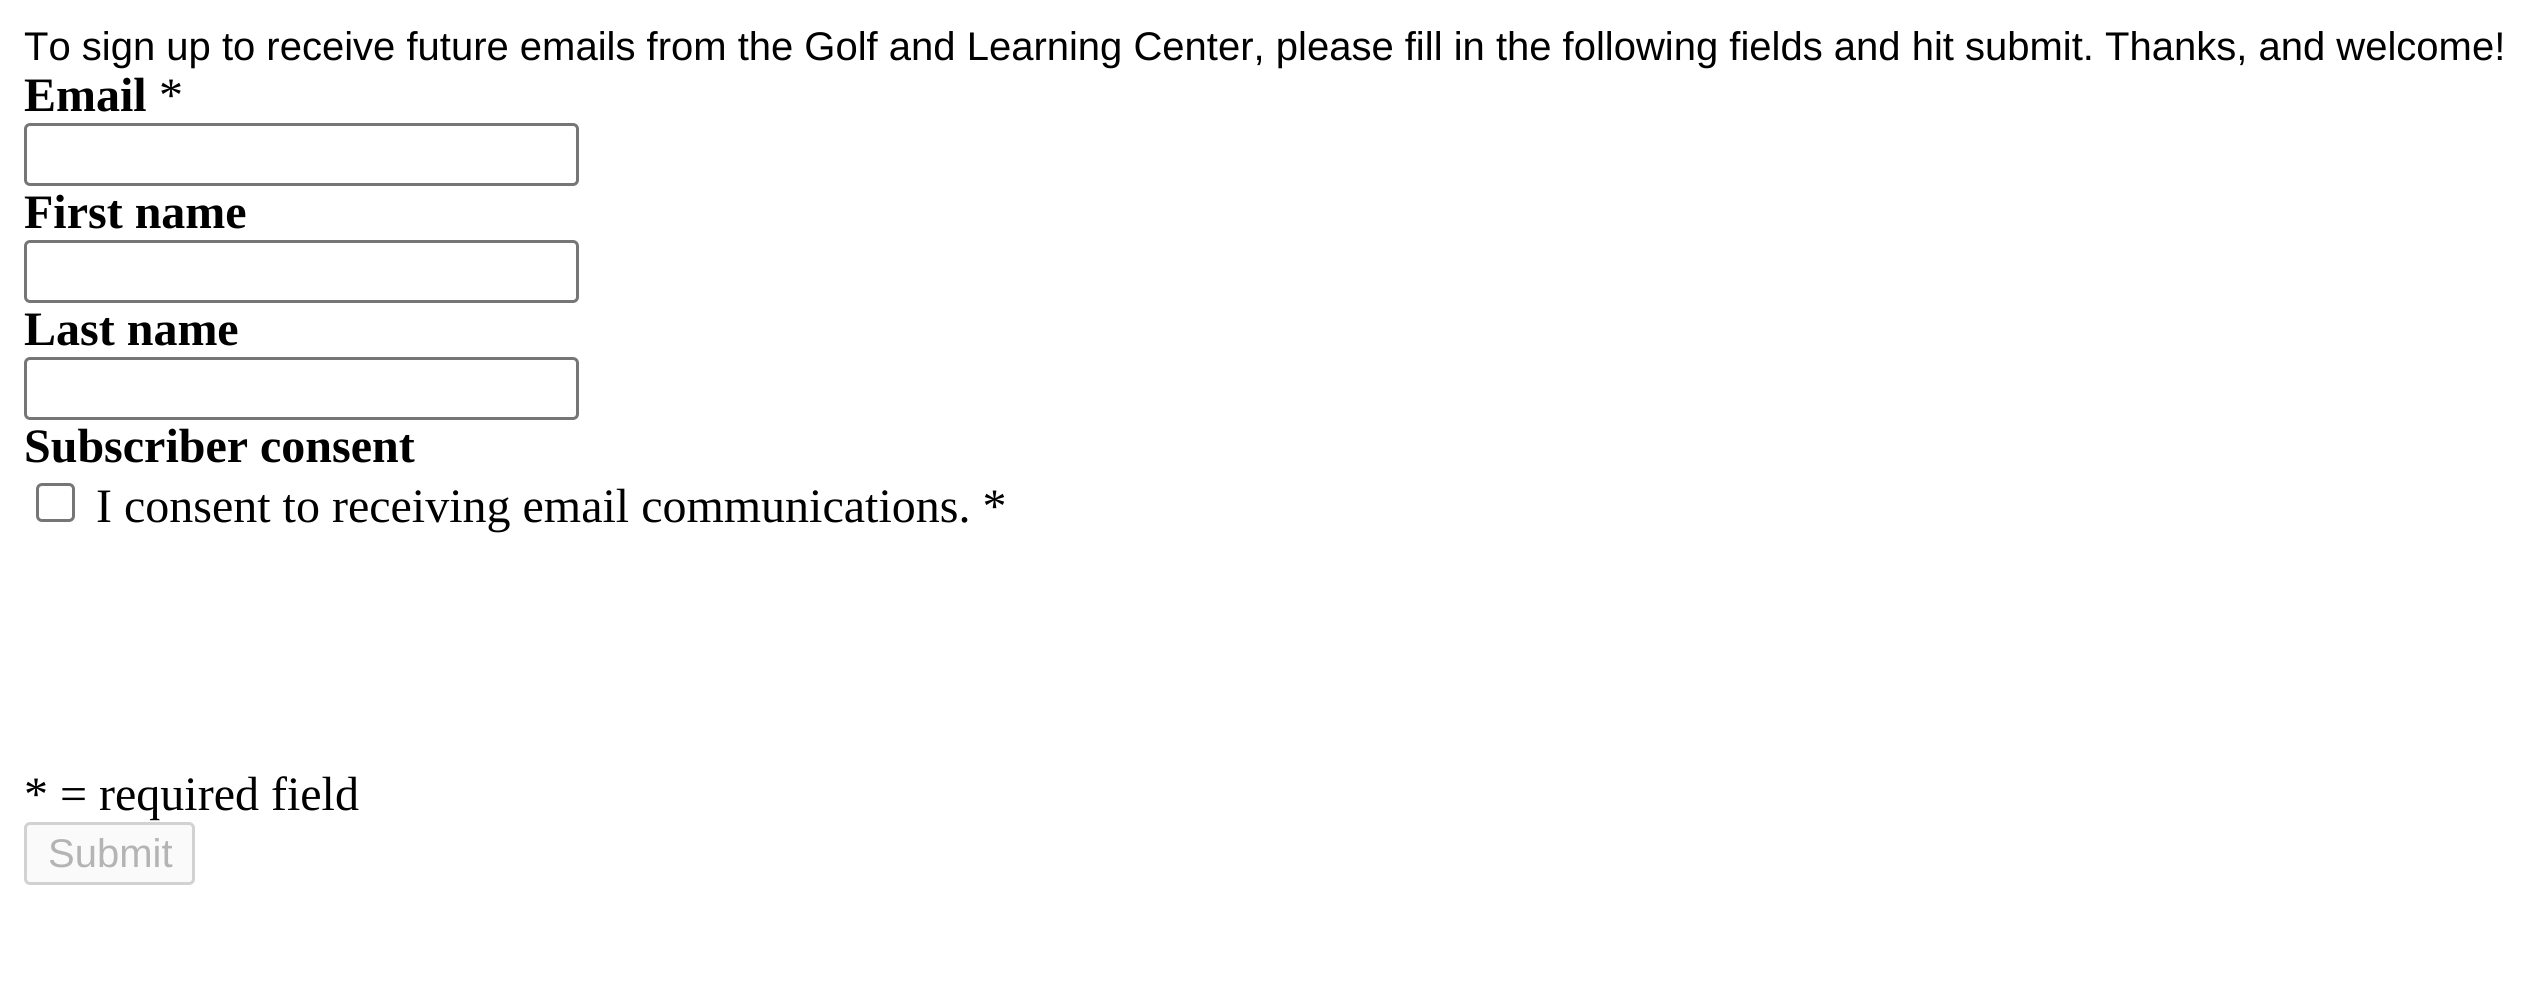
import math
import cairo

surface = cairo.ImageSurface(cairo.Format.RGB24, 2531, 999)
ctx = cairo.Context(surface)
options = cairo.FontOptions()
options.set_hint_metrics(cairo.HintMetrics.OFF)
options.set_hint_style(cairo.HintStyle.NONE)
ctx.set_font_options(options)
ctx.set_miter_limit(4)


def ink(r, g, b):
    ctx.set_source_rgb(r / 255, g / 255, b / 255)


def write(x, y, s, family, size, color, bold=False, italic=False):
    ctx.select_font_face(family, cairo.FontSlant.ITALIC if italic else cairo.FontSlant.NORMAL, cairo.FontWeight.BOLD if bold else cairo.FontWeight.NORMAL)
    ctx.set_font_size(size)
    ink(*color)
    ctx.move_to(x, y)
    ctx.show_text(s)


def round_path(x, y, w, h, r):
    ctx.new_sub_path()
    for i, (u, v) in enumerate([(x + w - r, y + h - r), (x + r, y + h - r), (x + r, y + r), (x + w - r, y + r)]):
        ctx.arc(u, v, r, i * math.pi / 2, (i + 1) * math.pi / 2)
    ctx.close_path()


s1 = dict(family="Liberation Sans", size=40, color=(0, 0, 0))
s2 = dict(family="Liberation Serif", size=48, color=(0, 0, 0), bold=True)
s3 = dict(family="Liberation Serif", size=48, color=(0, 0, 0))
s4 = dict(family="Liberation Sans", size=40, color=(180, 180, 180))

ink(255, 255, 255)
ctx.paint()
write(24, 60, "To sign up to receive future emails from the Golf and Learning Center, please fill in the following fields and hit submit. Thanks, and welcome!", **s1)
write(24, 111, "Email", **s2)
write(159, 111, "*", **s3)
round_path(25.5, 124.5, 552, 60, 4.5)
ink(118, 118, 118)
ctx.set_line_width(3)
ctx.stroke()
write(24, 228, "First name", **s2)
round_path(25.5, 241.5, 552, 60, 4.5)
ink(118, 118, 118)
ctx.stroke()
write(24, 345, "Last name", **s2)
round_path(25.5, 358.5, 552, 60, 4.5)
ink(118, 118, 118)
ctx.stroke()
write(24, 462, "Subscriber consent", **s2)
round_path(37.5, 484.5, 36, 36, 4.5)
ink(118, 118, 118)
ctx.stroke()
write(96, 522, "I consent to receiving email communications. *", **s3)
write(24, 810, "* = required field", **s3)
ink(250, 250, 250)
round_path(25.5, 823.5, 168, 60, 4.5)
ctx.fill_preserve()
ink(210, 210, 210)
ctx.stroke()
write(48, 867, "Submit", **s4)
surface.write_to_png("screenshot.png")
